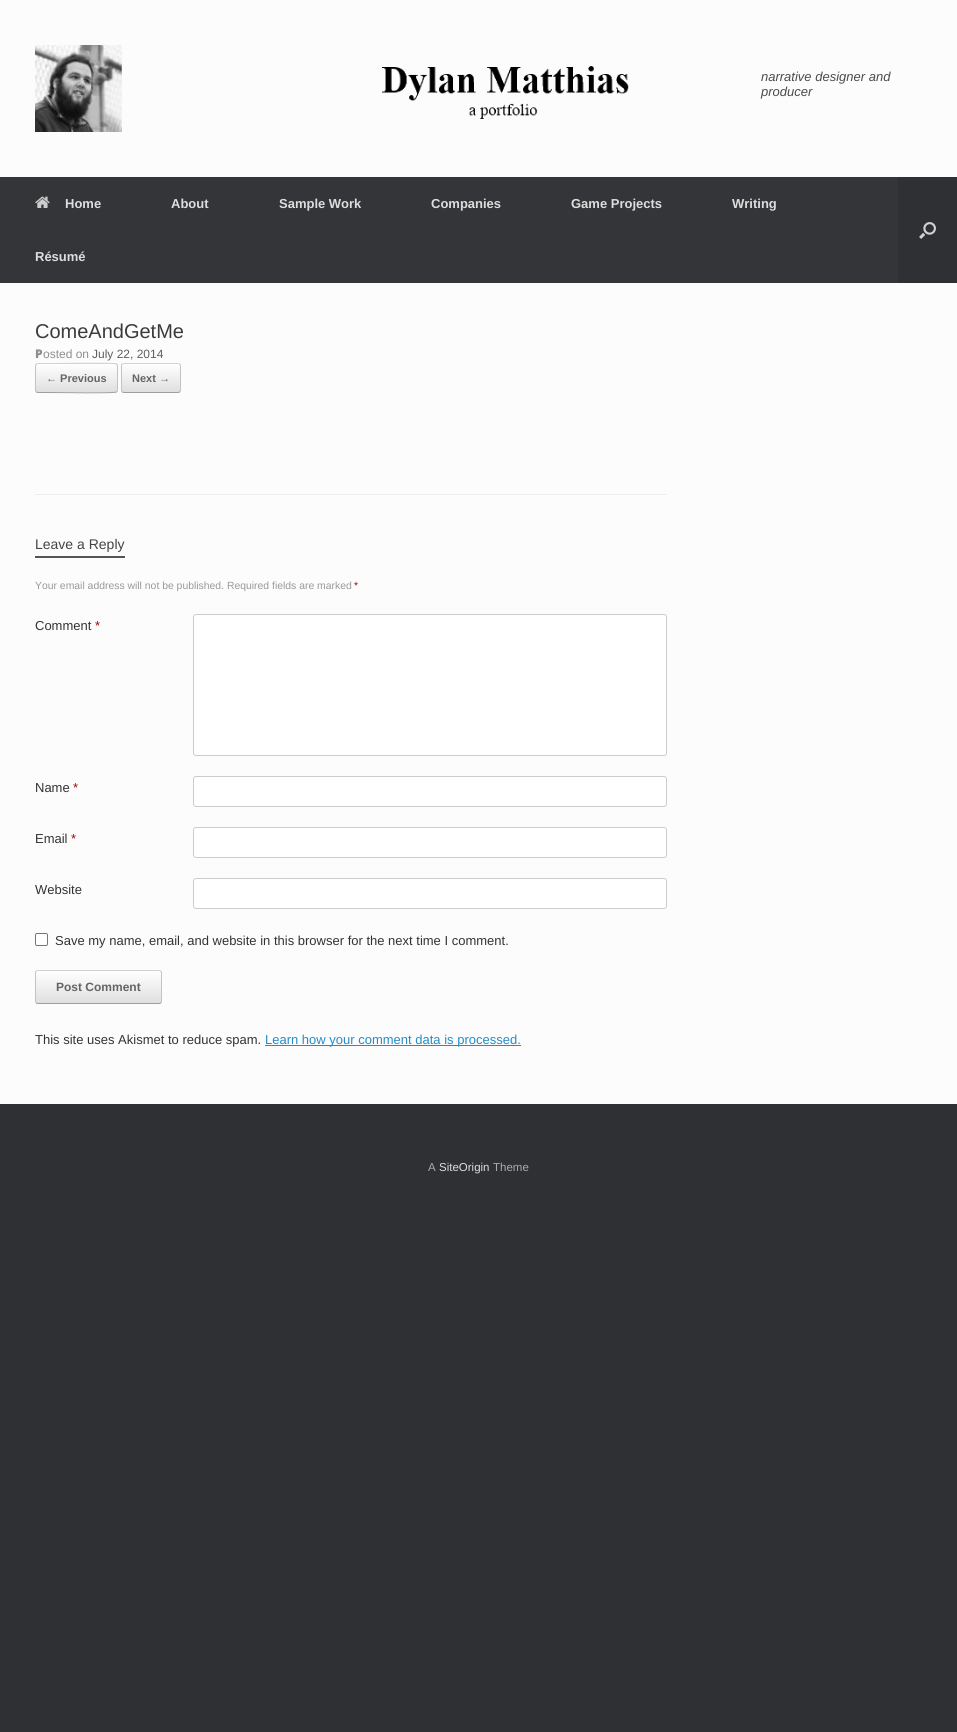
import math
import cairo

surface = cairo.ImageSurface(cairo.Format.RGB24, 957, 1732)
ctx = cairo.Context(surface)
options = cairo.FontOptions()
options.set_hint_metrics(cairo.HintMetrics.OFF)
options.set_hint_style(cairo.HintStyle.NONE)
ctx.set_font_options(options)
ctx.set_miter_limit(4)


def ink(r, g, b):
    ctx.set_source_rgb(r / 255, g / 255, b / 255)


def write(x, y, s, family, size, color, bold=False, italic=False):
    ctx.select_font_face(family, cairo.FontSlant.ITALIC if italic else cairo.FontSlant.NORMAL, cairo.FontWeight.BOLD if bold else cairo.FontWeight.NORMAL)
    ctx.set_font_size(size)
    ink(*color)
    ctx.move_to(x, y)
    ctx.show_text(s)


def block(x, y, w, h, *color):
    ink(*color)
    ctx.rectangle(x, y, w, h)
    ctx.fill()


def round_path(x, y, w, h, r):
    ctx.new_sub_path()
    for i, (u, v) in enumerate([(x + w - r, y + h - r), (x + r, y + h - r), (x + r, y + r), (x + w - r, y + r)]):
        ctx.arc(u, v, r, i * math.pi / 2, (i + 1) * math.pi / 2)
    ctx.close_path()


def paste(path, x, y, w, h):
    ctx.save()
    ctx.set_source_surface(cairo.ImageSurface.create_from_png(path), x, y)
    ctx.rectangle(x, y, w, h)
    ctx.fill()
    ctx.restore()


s1 = dict(family="Liberation Sans", size=13, color=(75, 75, 75), italic=True)
s2 = dict(family="Liberation Sans", size=13, color=(221, 221, 221), bold=True)
s3 = dict(family="Liberation Sans", size=20, color=(59, 59, 59))
s4 = dict(family="Noto Sans Black", size=12, color=(143, 143, 143))
s5 = dict(family="Liberation Sans", size=12, color=(143, 143, 143))
s6 = dict(family="Liberation Sans", size=12, color=(94, 94, 94))
s7 = dict(family="Liberation Sans", size=11, color=(100, 100, 100), bold=True)
s8 = dict(family="Liberation Sans", size=14, color=(68, 68, 68))
s9 = dict(family="Liberation Sans", size=10.4, color=(153, 153, 153))
s10 = dict(family="Liberation Sans", size=10.4, color=(164, 8, 2))
s11 = dict(family="Liberation Sans", size=13, color=(51, 51, 51))
s12 = dict(family="Liberation Sans", size=13, color=(164, 8, 2))
s13 = dict(family="Liberation Sans", size=12, color=(100, 100, 100), bold=True)
s14 = dict(family="Liberation Sans", size=13, color=(36, 140, 200))
s15 = dict(family="Liberation Sans", size=11.5, color=(170, 170, 170))
s16 = dict(family="Liberation Sans", size=11.5, color=(221, 221, 221))

ink(47, 48, 51)
ctx.paint()
block(0, 0, 957, 177, 252, 252, 252)
paste("pic1.png", 35, 45, 594, 87)
write(761, 81, "narrative designer and", **s1)
write(761, 96, "producer", **s1)
block(0, 177, 898, 106, 52, 53, 56)
paste("pic2.png", 35, 196, 15, 12)
write(65, 208, "Home", **s2)
write(171, 208, "About", **s2)
write(279, 208, "Sample Work", **s2)
write(431, 208, "Companies", **s2)
write(571, 208, "Game Projects", **s2)
write(732, 208, "Writing", **s2)
write(35, 261, "Résumé", **s2)
paste("pic3.png", 919, 222, 17, 17)
block(0, 283, 957, 821, 252, 252, 252)
block(35, 494, 632, 1, 238, 238, 238)
write(35, 338, "ComeAndGetMe", **s3)
write(35, 358, "P", **s4)
write(43, 358, "osted on", **s5)
write(92, 358, "July 22, 2014", **s6)
ctx.save()
round_path(35, 363, 83, 30, 3)
ctx.clip()
gradient = cairo.LinearGradient(36, 364, 36, 336)
gradient.add_color_stop_rgba(0, 0.875, 0.875, 0.875, 1)
gradient.add_color_stop_rgba(1, 1, 1, 1, 1)
ctx.set_source(gradient)
ctx.rectangle(35, 363, 83, 1)
ctx.fill()
gradient = cairo.LinearGradient(36, 392, 36, 364)
gradient.add_color_stop_rgba(0, 0.875, 0.875, 0.875, 1)
gradient.add_color_stop_rgba(1, 1, 1, 1, 1)
ctx.set_source(gradient)
ctx.rectangle(35, 364, 83, 28)
ctx.fill()
ctx.restore()
ctx.new_path()
ctx.move_to(36, 364)
ctx.line_to(38, 363.5)
ctx.line_to(51, 363.5)
ctx.curve_to(58, 363.5, 114.5, 362.5, 116.5, 364)
ctx.line_to(117, 364)
ink(210, 210, 210)
ctx.set_line_width(1)
ctx.stroke()
ctx.new_path()
ctx.move_to(117, 364)
ctx.curve_to(117, 364.5, 117.5, 365.5, 117.5, 366)
ctx.line_to(117.5, 390)
ctx.curve_to(117.5, 390.5, 117, 391.5, 117, 392)
ink(195, 195, 195)
ctx.stroke()
ctx.new_path()
ctx.move_to(117, 392)
ctx.line_to(116.5, 392)
ctx.curve_to(114.5, 393.5, 58, 392.5, 51, 392.5)
ctx.line_to(38, 392.5)
ctx.line_to(36, 392)
ink(159, 159, 159)
ctx.stroke()
ctx.new_path()
ctx.move_to(36, 392)
ctx.curve_to(36, 391.5, 35.5, 390.5, 35.5, 390)
ctx.line_to(35.5, 366)
ctx.curve_to(35.5, 365.5, 36, 364.5, 36, 364)
ink(195, 195, 195)
ctx.stroke()
write(46, 382, "← Previous", **s7)
ctx.save()
round_path(121, 363, 60, 30, 3)
ctx.clip()
gradient = cairo.LinearGradient(122, 392, 122, 364)
gradient.add_color_stop_rgba(0, 0.875, 0.875, 0.875, 1)
gradient.add_color_stop_rgba(1, 1, 1, 1, 1)
ctx.set_source(gradient)
ctx.rectangle(121, 364, 60, 28)
ctx.fill()
ctx.restore()
ctx.new_path()
ctx.move_to(122, 364)
ctx.line_to(124, 363.5)
ctx.line_to(178, 363.5)
ctx.line_to(180, 364)
ink(210, 210, 210)
ctx.stroke()
ctx.new_path()
ctx.move_to(180, 364)
ctx.curve_to(180, 364.5, 180.5, 365.5, 180.5, 366)
ctx.line_to(180.5, 390)
ctx.curve_to(180.5, 390.5, 180, 391.5, 180, 392)
ink(195, 195, 195)
ctx.stroke()
ctx.new_path()
ctx.move_to(180, 392)
ctx.line_to(178, 392.5)
ctx.line_to(124, 392.5)
ctx.line_to(122, 392)
ink(159, 159, 159)
ctx.stroke()
ctx.new_path()
ctx.move_to(122, 392)
ctx.curve_to(122, 391.5, 121.5, 390.5, 121.5, 390)
ctx.line_to(121.5, 366)
ctx.curve_to(121.5, 365.5, 122, 364.5, 122, 364)
ink(195, 195, 195)
ctx.stroke()
write(132, 382, "Next →", **s7)
block(35, 556, 90, 2, 85, 85, 85)
write(35, 549, "Leave a Reply", **s8)
write(35, 589, "Your email address will not be published. Required fields are marked", **s9)
write(354, 589, "*", **s10)
write(35, 630, "Comment", **s11)
write(95, 630, "*", **s12)
ink(255, 255, 255)
round_path(193.5, 614.5, 473, 141, 2.5)
ctx.fill_preserve()
ink(204, 204, 204)
ctx.stroke()
write(35, 792, "Name", **s11)
write(73, 792, "*", **s12)
ink(255, 255, 255)
round_path(193.5, 776.5, 473, 30, 2.5)
ctx.fill_preserve()
ink(204, 204, 204)
ctx.stroke()
write(35, 843, "Email", **s11)
write(71, 843, "*", **s12)
ink(255, 255, 255)
round_path(193.5, 827.5, 473, 30, 2.5)
ctx.fill_preserve()
ink(204, 204, 204)
ctx.stroke()
write(35, 894, "Website", **s11)
ink(255, 255, 255)
round_path(193.5, 878.5, 473, 30, 2.5)
ctx.fill_preserve()
ink(204, 204, 204)
ctx.stroke()
ink(255, 255, 255)
round_path(35.5, 933.5, 12, 12, 1.5)
ctx.fill_preserve()
ink(118, 118, 118)
ctx.stroke()
write(55, 945, "Save my name, email, and website in this browser for the next time I comment.", **s11)
ctx.save()
round_path(35, 970, 127, 34, 3)
ctx.clip()
gradient = cairo.LinearGradient(36, 1003, 36, 971)
gradient.add_color_stop_rgba(0, 0.875, 0.875, 0.875, 1)
gradient.add_color_stop_rgba(1, 1, 1, 1, 1)
ctx.set_source(gradient)
ctx.rectangle(35, 971, 127, 32)
ctx.fill()
ctx.restore()
ctx.new_path()
ctx.move_to(36, 971)
ctx.line_to(38, 970.5)
ctx.line_to(159, 970.5)
ctx.line_to(161, 971)
ink(210, 210, 210)
ctx.stroke()
ctx.new_path()
ctx.move_to(161, 971)
ctx.curve_to(161, 971.5, 161.5, 972.5, 161.5, 973)
ctx.line_to(161.5, 1001)
ctx.curve_to(161.5, 1001.5, 161, 1002.5, 161, 1003)
ink(195, 195, 195)
ctx.stroke()
ctx.new_path()
ctx.move_to(161, 1003)
ctx.line_to(159, 1003.5)
ctx.line_to(58, 1003.5)
ctx.line_to(38, 1003.5)
ctx.line_to(36, 1003)
ink(159, 159, 159)
ctx.stroke()
ctx.new_path()
ctx.move_to(36, 1003)
ctx.curve_to(36, 1002.5, 35.5, 1001.5, 35.5, 1001)
ctx.line_to(35.5, 973)
ctx.curve_to(35.5, 972.5, 36, 971.5, 36, 971)
ink(195, 195, 195)
ctx.stroke()
write(56, 991, "Post Comment", **s13)
write(35, 1044, "This site uses Akismet to reduce spam.", **s11)
block(265, 1045, 256, 1, 36, 140, 200)
write(265, 1044, "Learn how your comment data is processed.", **s14)
write(428, 1171, "A", **s15)
write(439, 1171, "SiteOrigin", **s16)
write(493, 1171, "Theme", **s15)
surface.write_to_png("screenshot.png")
